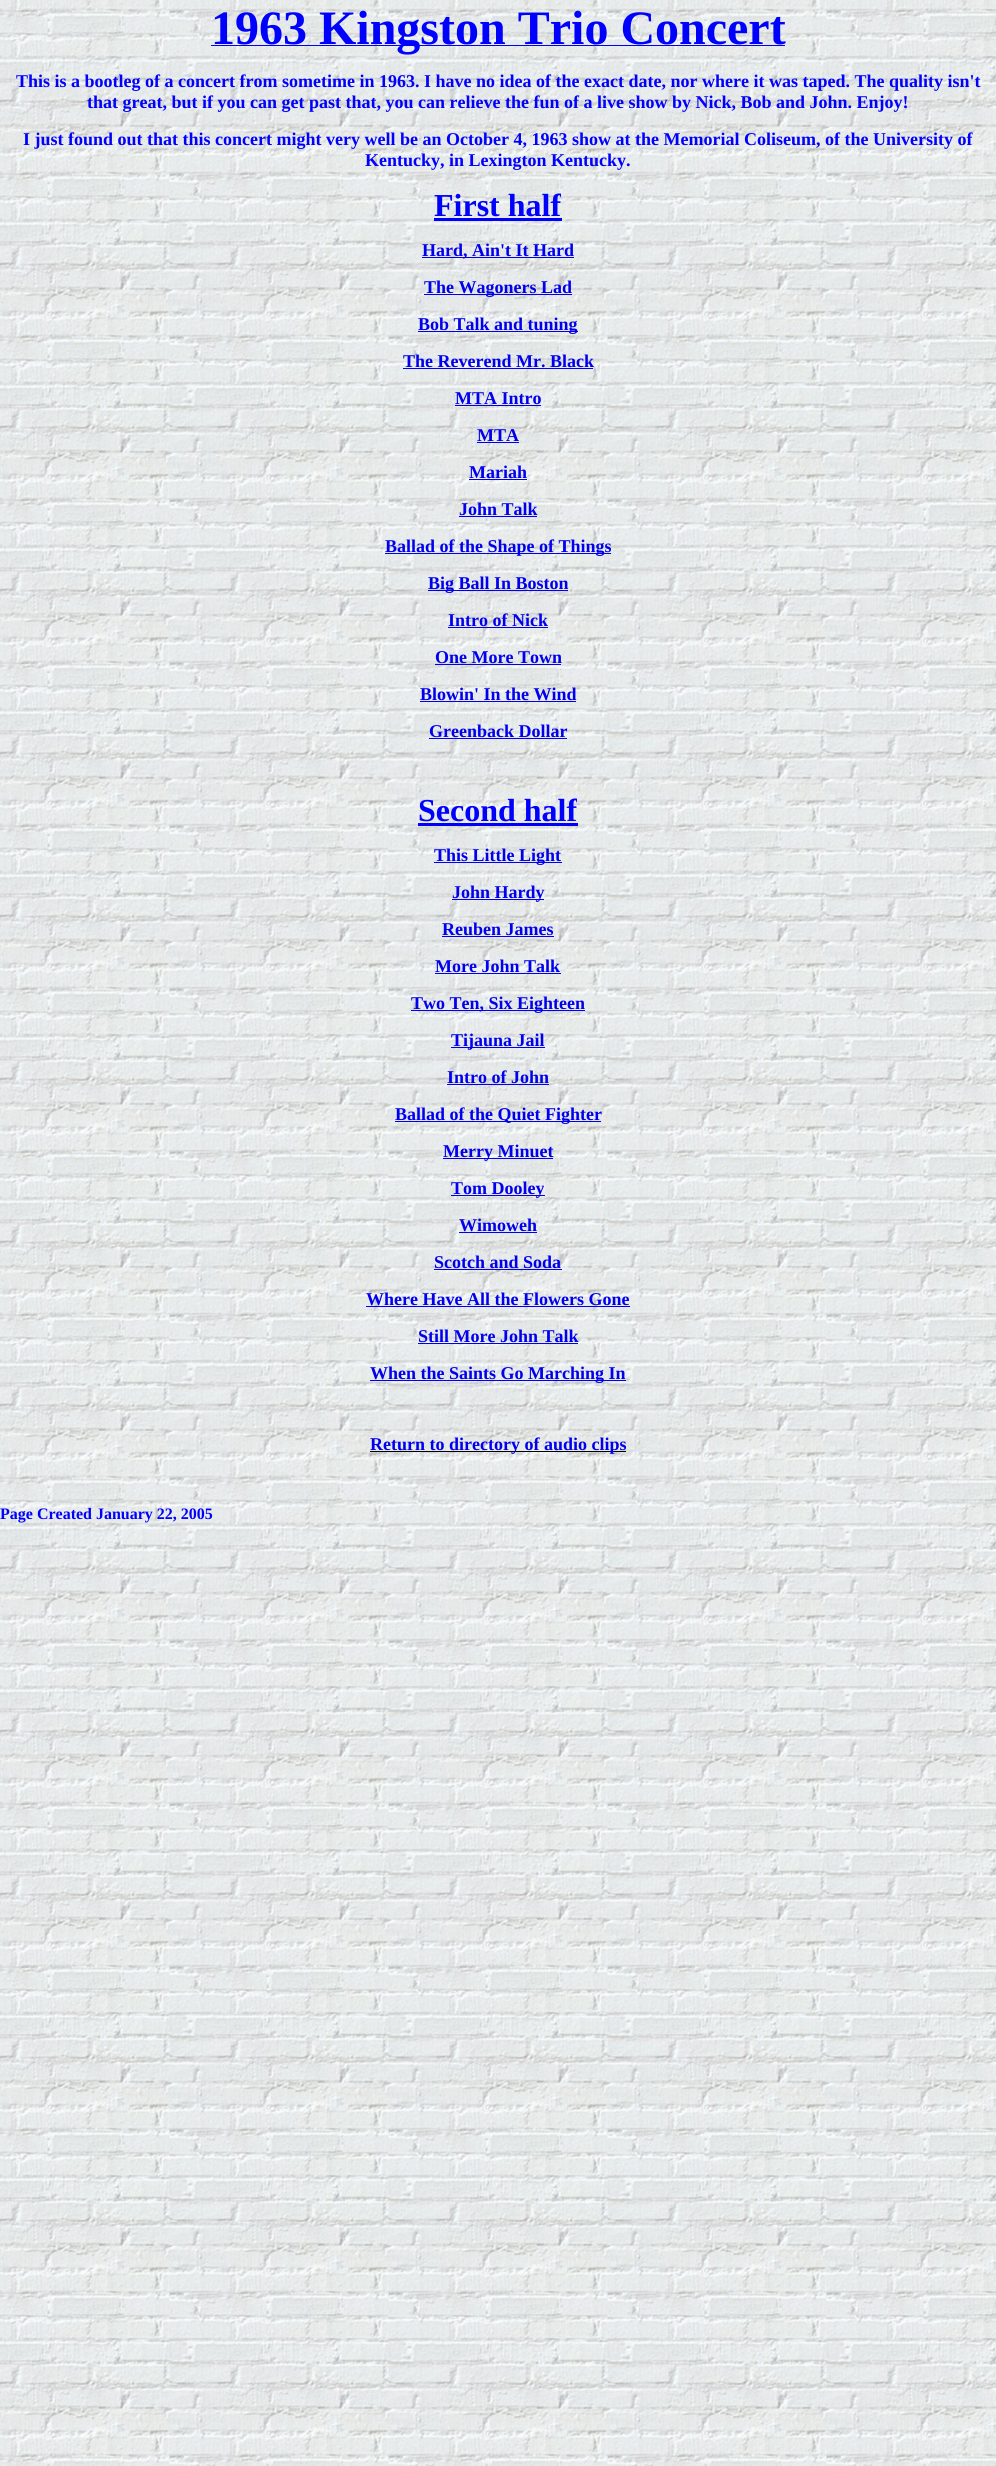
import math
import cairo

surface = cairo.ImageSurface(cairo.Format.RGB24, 996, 2466)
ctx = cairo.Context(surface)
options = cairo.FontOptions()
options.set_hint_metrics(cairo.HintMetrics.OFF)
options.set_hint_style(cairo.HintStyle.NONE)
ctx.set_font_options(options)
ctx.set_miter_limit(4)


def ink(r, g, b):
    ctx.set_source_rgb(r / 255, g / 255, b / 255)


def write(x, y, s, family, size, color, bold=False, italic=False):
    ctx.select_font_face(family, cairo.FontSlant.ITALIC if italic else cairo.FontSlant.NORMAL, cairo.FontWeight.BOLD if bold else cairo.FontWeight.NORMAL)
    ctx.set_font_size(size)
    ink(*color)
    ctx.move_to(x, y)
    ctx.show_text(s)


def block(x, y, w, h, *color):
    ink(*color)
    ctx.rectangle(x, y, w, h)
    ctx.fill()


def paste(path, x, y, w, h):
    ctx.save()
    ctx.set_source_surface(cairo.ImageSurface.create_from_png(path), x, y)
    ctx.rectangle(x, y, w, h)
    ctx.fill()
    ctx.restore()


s1 = dict(family="Liberation Serif", size=48, color=(0, 0, 255), bold=True)
s2 = dict(family="Liberation Serif", size=18, color=(0, 0, 255), bold=True)
s3 = dict(family="Liberation Serif", size=32, color=(0, 0, 255), bold=True)
s4 = dict(family="Liberation Serif", size=18, color=(0, 0, 238), bold=True)
s5 = dict(family="Liberation Serif", size=16, color=(0, 0, 255), bold=True)

ink(255, 255, 255)
ctx.paint()
paste("pic1.png", 0, 0, 996, 2466)
block(211, 45, 574, 1, 0, 0, 255)
write(211, 44, "1963 Kingston Trio Concert", **s1)
write(16, 87, "This is a bootleg of a concert from sometime in 1963. I have no idea of the exact date, nor where it was taped. The quality isn't", **s2)
write(87, 108, "that great, but if you can get past that, you can relieve the fun of a live show by Nick, Bob and John. Enjoy!", **s2)
write(23, 145, "I just found out that this concert might very well be an October 4, 1963 show at the Memorial Coliseum, of the University of", **s2)
write(365, 166, "Kentucky, in Lexington Kentucky.", **s2)
write(434, 216, "First half", **s3)
block(434, 218, 128, 3, 0, 0, 255)
block(422, 257, 152, 1, 0, 0, 238)
write(422, 256, "Hard, Ain't It Hard", **s4)
block(424, 294, 148, 1, 0, 0, 238)
write(424, 293, "The Wagoners Lad", **s4)
block(418, 331, 160, 1, 0, 0, 238)
write(418, 330, "Bob Talk and tuning", **s4)
write(403, 367, "The Reverend Mr. Black", **s4)
block(403, 368, 190, 1, 0, 0, 238)
write(455, 404, "MTA Intro", **s4)
block(455, 405, 86, 1, 0, 0, 238)
write(477, 441, "MTA", **s4)
block(477, 442, 42, 1, 0, 0, 238)
write(469, 478, "Mariah", **s4)
block(469, 479, 58, 1, 0, 0, 238)
write(459, 515, "John Talk", **s4)
block(459, 516, 78, 1, 0, 0, 238)
block(385, 553, 226, 1, 0, 0, 238)
write(385, 552, "Ballad of the Shape of Things", **s4)
block(428, 590, 140, 1, 0, 0, 238)
write(428, 589, "Big Ball In Boston", **s4)
write(448, 626, "Intro of Nick", **s4)
block(448, 627, 100, 1, 0, 0, 238)
write(435, 663, "One More Town", **s4)
block(435, 664, 126, 1, 0, 0, 238)
write(420, 700, "Blowin' In the Wind", **s4)
block(420, 701, 156, 1, 0, 0, 238)
write(429, 737, "Greenback Dollar", **s4)
block(429, 738, 138, 1, 0, 0, 238)
write(418, 821, "Second half", **s3)
block(418, 823, 160, 3, 0, 0, 255)
block(434, 862, 128, 1, 0, 0, 238)
write(434, 861, "This Little Light", **s4)
block(452, 899, 92, 1, 0, 0, 238)
write(452, 898, "John Hardy", **s4)
write(442, 935, "Reuben James", **s4)
block(442, 936, 112, 1, 0, 0, 238)
write(435, 972, "More John Talk", **s4)
block(435, 973, 126, 1, 0, 0, 238)
block(411, 1010, 174, 1, 0, 0, 238)
write(411, 1009, "Two Ten, Six Eighteen", **s4)
block(451, 1047, 94, 1, 0, 0, 238)
write(451, 1046, "Tijauna Jail", **s4)
write(447, 1083, "Intro of John", **s4)
block(447, 1084, 102, 1, 0, 0, 238)
block(395, 1121, 206, 1, 0, 0, 238)
write(395, 1120, "Ballad of the Quiet Fighter", **s4)
block(443, 1158, 110, 1, 0, 0, 238)
write(443, 1157, "Merry Minuet", **s4)
block(451, 1195, 94, 1, 0, 0, 238)
write(451, 1194, "Tom Dooley", **s4)
write(459, 1231, "Wimoweh", **s4)
block(459, 1232, 78, 1, 0, 0, 238)
write(434, 1268, "Scotch and Soda", **s4)
block(434, 1269, 128, 1, 0, 0, 238)
write(366, 1305, "Where Have All the Flowers Gone", **s4)
block(366, 1306, 264, 1, 0, 0, 238)
write(418, 1342, "Still More John Talk", **s4)
block(418, 1343, 160, 1, 0, 0, 238)
block(370, 1380, 256, 1, 0, 0, 238)
write(370, 1379, "When the Saints Go Marching In", **s4)
block(370, 1451, 256, 1, 0, 0, 0)
write(370, 1450, "Return to directory of audio clips", **s4)
write(0, 1519, "Page Created January 22, 2005", **s5)
surface.write_to_png("screenshot.png")
